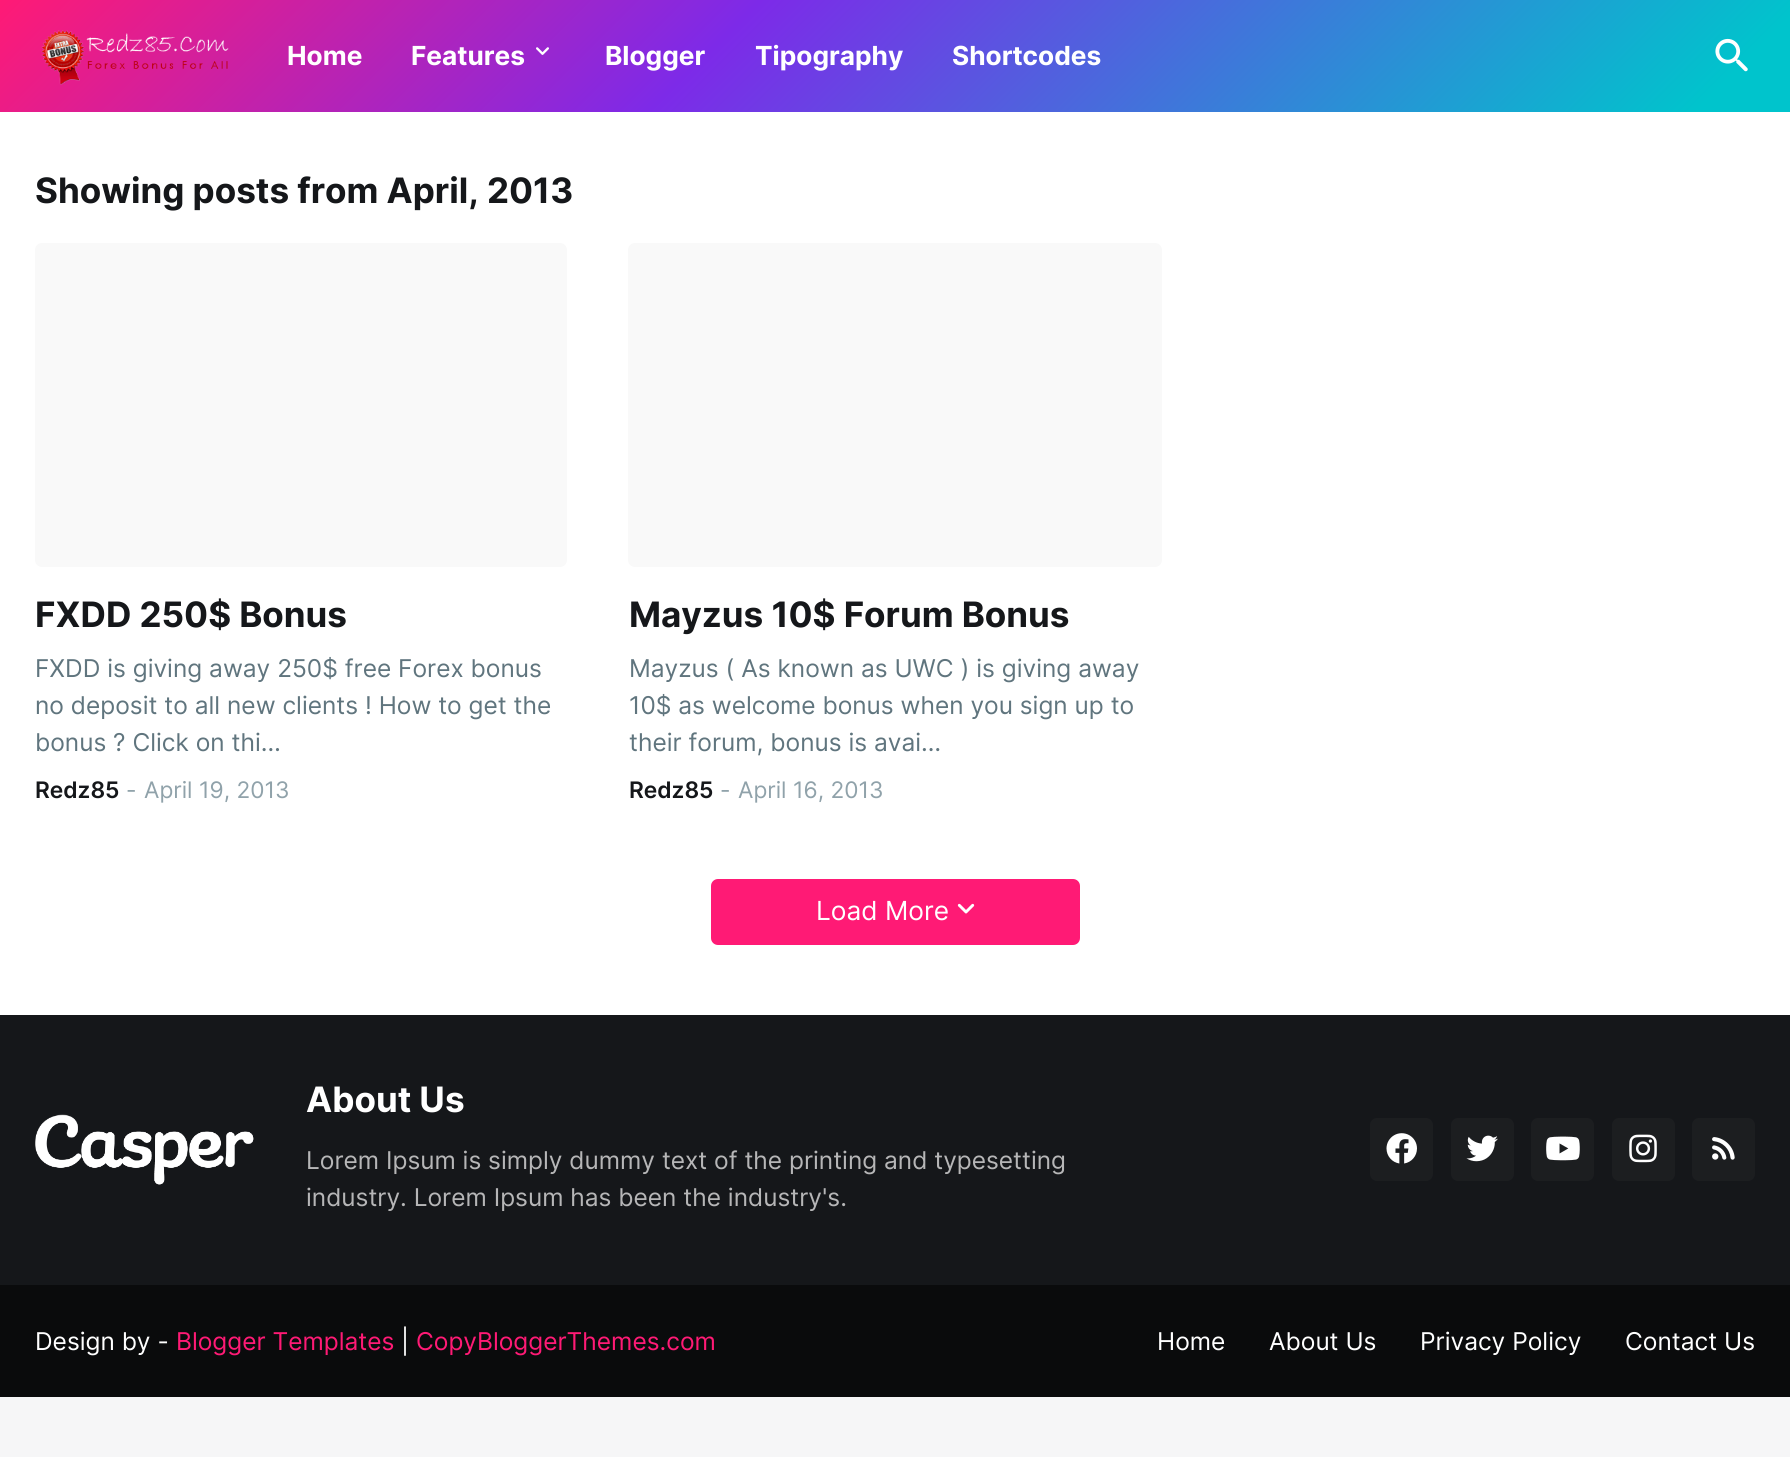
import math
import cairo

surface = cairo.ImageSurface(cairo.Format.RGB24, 1790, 1457)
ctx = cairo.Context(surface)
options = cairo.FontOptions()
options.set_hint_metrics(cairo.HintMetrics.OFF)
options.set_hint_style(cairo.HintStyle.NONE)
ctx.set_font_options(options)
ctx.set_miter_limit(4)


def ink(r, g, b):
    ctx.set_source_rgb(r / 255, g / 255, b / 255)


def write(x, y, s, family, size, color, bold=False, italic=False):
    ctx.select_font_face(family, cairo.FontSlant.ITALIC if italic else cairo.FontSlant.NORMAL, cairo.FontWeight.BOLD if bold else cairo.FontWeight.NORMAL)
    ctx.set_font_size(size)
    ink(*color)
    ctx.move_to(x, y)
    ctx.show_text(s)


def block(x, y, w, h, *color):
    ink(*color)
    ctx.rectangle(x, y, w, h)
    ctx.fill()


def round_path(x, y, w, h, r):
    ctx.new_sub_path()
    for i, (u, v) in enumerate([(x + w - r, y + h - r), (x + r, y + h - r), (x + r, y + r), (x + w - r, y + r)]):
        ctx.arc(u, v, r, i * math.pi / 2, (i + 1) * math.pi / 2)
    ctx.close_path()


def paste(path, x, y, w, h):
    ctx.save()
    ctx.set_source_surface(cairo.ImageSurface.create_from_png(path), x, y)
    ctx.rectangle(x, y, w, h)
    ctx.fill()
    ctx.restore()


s1 = dict(family="Inter", size=26.25, color=(255, 255, 255), bold=True)
s2 = dict(family="Inter", size=35, color=(21, 23, 26), bold=True)
s3 = dict(family="Inter", size=24.5, color=(96, 117, 126))
s4 = dict(family="Inter SemiBold", size=22.75, color=(21, 23, 26))
s5 = dict(family="Inter", size=22.75, color=(144, 162, 170))
s6 = dict(family="Inter", size=26.25, color=(255, 255, 255))
s7 = dict(family="Inter", size=35, color=(255, 255, 255), bold=True)
s8 = dict(family="Inter", size=24.5, color=(182, 182, 183))
s9 = dict(family="Inter", size=24.5, color=(255, 255, 255))
s10 = dict(family="Inter", size=24.5, color=(255, 26, 117))

ink(246, 246, 247)
ctx.paint()
block(0, 112, 1790, 903, 255, 255, 255)
gradient = cairo.LinearGradient(420, -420, 1371, 532)
gradient.add_color_stop_rgba(0, 1, 0.102, 0.459, 1)
gradient.add_color_stop_rgba(0.4, 0.49, 0.165, 0.91, 1)
gradient.add_color_stop_rgba(0.95, 0, 0.769, 0.8, 1)
ctx.set_source(gradient)
ctx.rectangle(0, 0, 1790, 112)
ctx.fill()
paste("pic1.png", 41, 30, 188, 55)
write(287, 65, "Home", **s1)
write(411, 65, "Features", **s1)
paste("pic2.png", 536, 47, 13, 8)
write(605, 65, "Blogger", **s1)
write(755, 65, "Tipography", **s1)
write(952, 65, "Shortcodes", **s1)
paste("pic3.png", 1715, 38, 33, 34)
write(35, 203, "Showing posts from April, 2013", **s2)
ink(249, 249, 249)
round_path(35, 243, 532, 324, 7)
ctx.fill()
write(35, 627, "FXDD 250$ Bonus", **s2)
write(35, 677, "FXDD is giving away 250$ free Forex bonus", **s3)
write(35, 714, "no deposit to all new clients ! How to get the", **s3)
write(35, 751, "bonus ? Click on thi…", **s3)
write(35, 798, "Redz85", **s4)
write(126, 798, "-", **s5)
write(144, 798, "April 19, 2013", **s5)
ink(249, 249, 249)
round_path(628, 243, 534, 324, 7)
ctx.fill()
write(629, 627, "Mayzus 10$ Forum Bonus", **s2)
write(629, 677, "Mayzus ( As known as UWC ) is giving away", **s3)
write(629, 714, "10$ as welcome bonus when you sign up to", **s3)
write(629, 751, "their forum, bonus is avai…", **s3)
write(629, 798, "Redz85", **s4)
write(720, 798, "-", **s5)
write(738, 798, "April 16, 2013", **s5)
ink(255, 26, 117)
round_path(711, 879, 369, 66, 7)
ctx.fill()
write(816, 920, "Load More", **s6)
paste("pic4.png", 957, 903, 18, 11)
block(0, 1015, 1790, 270, 21, 23, 26)
paste("pic5.png", 35, 1114, 219, 71)
write(306, 1112, "About Us", **s7)
write(306, 1169, "Lorem Ipsum is simply dummy text of the printing and typesetting", **s8)
write(306, 1206, "industry. Lorem Ipsum has been the industry's.", **s8)
ink(28, 30, 32)
round_path(1370, 1118, 63, 63, 7)
ctx.fill()
paste("pic6.png", 1386, 1133, 31, 31)
round_path(1451, 1118, 63, 63, 7)
ctx.fill()
paste("pic7.png", 1466, 1135, 32, 27)
round_path(1531, 1118, 63, 63, 7)
ctx.fill()
paste("pic8.png", 1546, 1136, 34, 25)
round_path(1612, 1118, 63, 63, 7)
ctx.fill()
paste("pic9.png", 1629, 1134, 28, 29)
round_path(1692, 1118, 63, 63, 7)
ctx.fill()
paste("pic10.png", 1712, 1137, 23, 23)
block(0, 1285, 1790, 112, 10, 11, 12)
write(35, 1350, "Design by -", **s9)
write(176, 1350, "Blogger Templates", **s10)
write(401, 1350, "|", **s9)
write(416, 1350, "CopyBloggerThemes.com", **s10)
write(1157, 1350, "Home", **s9)
write(1269, 1350, "About Us", **s9)
write(1420, 1350, "Privacy Policy", **s9)
write(1625, 1350, "Contact Us", **s9)
surface.write_to_png("screenshot.png")
